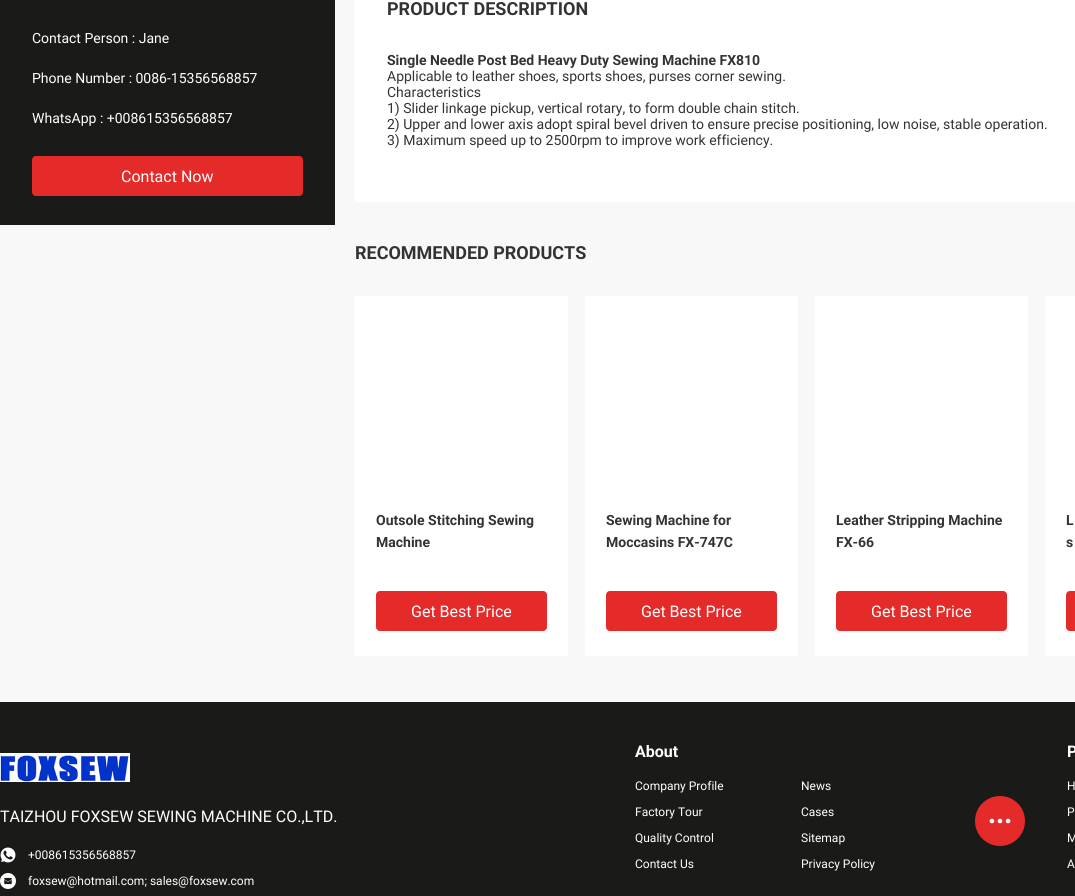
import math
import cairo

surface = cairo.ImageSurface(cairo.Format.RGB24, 1075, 896)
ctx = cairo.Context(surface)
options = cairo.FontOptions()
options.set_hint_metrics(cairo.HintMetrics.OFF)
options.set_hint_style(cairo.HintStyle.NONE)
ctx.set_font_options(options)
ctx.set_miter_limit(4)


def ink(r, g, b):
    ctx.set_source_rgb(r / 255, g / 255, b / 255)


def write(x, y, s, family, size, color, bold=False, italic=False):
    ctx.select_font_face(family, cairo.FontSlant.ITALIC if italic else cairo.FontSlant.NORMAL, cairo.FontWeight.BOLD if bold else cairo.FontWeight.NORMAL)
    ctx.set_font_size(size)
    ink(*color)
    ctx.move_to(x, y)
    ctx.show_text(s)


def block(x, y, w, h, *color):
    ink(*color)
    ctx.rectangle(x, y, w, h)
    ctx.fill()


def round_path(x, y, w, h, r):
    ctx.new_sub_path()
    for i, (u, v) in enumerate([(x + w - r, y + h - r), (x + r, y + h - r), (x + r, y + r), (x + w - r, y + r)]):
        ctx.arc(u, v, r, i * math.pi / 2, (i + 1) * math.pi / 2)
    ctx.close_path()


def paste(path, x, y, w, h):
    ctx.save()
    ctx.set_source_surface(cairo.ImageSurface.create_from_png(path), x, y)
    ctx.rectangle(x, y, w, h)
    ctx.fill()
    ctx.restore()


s1 = dict(family="Roboto", size=14, color=(255, 255, 255))
s2 = dict(family="Roboto", size=16, color=(255, 255, 255))
s3 = dict(family="Roboto", size=18, color=(51, 51, 51), bold=True)
s4 = dict(family="Roboto", size=14, color=(51, 51, 51), bold=True)
s5 = dict(family="Roboto", size=14, color=(51, 51, 51))
s6 = dict(family="Roboto", size=12, color=(255, 255, 255))
s7 = dict(family="Roboto", size=16, color=(255, 255, 255), bold=True)

ink(248, 248, 248)
ctx.paint()
block(0, 0, 335, 225, 26, 26, 25)
write(32, 43, "Contact Person : Jane", **s1)
write(32, 83, "Phone Number : 0086-15356568857", **s1)
write(32, 123, "WhatsApp : +008615356568857", **s1)
ink(229, 42, 42)
round_path(32.5, 156.5, 270, 39, 3.5)
ctx.fill_preserve()
ctx.set_line_width(1)
ctx.stroke()
write(121, 182, "Contact Now", **s2)
block(355, 0, 720, 202, 255, 255, 255)
write(387, 15, "PRODUCT DESCRIPTION", **s3)
write(387, 65, "Single Needle Post Bed Heavy Duty Sewing Machine FX810", **s4)
write(387, 81, "Applicable to leather shoes, sports shoes, purses corner sewing.", **s5)
write(387, 97, "Characteristics", **s5)
write(387, 113, "1) Slider linkage pickup, vertical rotary, to form double chain stitch.", **s5)
write(387, 129, "2) Upper and lower axis adopt spiral bevel driven to ensure precise positioning, low noise, stable operation.", **s5)
write(387, 145, "3) Maximum speed up to 2500rpm to improve work efficiency.", **s5)
write(355, 259, "RECOMMENDED PRODUCTS", **s3)
block(355, 296, 213, 360, 255, 255, 255)
write(376, 525, "Outsole Stitching Sewing", **s4)
write(376, 547, "Machine", **s4)
ink(229, 42, 42)
round_path(376.5, 591.5, 170, 39, 3.5)
ctx.fill_preserve()
ctx.stroke()
write(411, 617, "Get Best Price", **s2)
block(585, 296, 213, 360, 255, 255, 255)
write(606, 525, "Sewing Machine for", **s4)
write(606, 547, "Moccasins FX-747C", **s4)
ink(229, 42, 42)
round_path(606.5, 591.5, 170, 39, 3.5)
ctx.fill_preserve()
ctx.stroke()
write(641, 617, "Get Best Price", **s2)
block(815, 296, 213, 360, 255, 255, 255)
write(836, 525, "Leather Stripping Machine", **s4)
write(836, 547, "FX-66", **s4)
ink(229, 42, 42)
round_path(836.5, 591.5, 170, 39, 3.5)
ctx.fill_preserve()
ctx.stroke()
write(871, 617, "Get Best Price", **s2)
block(1045, 296, 30, 360, 255, 255, 255)
write(1066, 525, "L", **s4)
write(1066, 547, "s", **s4)
ink(229, 42, 42)
round_path(1066.5, 591.5, 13, 39, 3.5)
ctx.fill_preserve()
ctx.stroke()
block(0, 702, 1075, 194, 26, 26, 25)
paste("pic1.png", 0, 753, 130, 29)
write(0, 822, "TAIZHOU FOXSEW SEWING MACHINE CO.,LTD.", **s2)
paste("pic2.png", 0, 847, 16, 16)
write(28, 859, "+008615356568857", **s6)
paste("pic3.png", 0, 873, 16, 16)
write(28, 885, "foxsew@hotmail.com; sales@foxsew.com", **s6)
write(635, 757, "About", **s7)
write(635, 790, "Company Profile", **s6)
write(635, 816, "Factory Tour", **s6)
write(635, 842, "Quality Control", **s6)
write(635, 868, "Contact Us", **s6)
write(801, 790, "News", **s6)
write(801, 816, "Cases", **s6)
write(801, 842, "Sitemap", **s6)
write(801, 868, "Privacy Policy", **s6)
write(1067, 757, "P", **s7)
write(1067, 790, "H", **s6)
write(1067, 816, "P", **s6)
write(1067, 842, "M", **s6)
write(1067, 868, "A", **s6)
ink(229, 42, 42)
ctx.new_path()
ctx.arc(1000, 821, 25, 0, 2 * math.pi)
ctx.fill()
paste("pic4.png", 989, 818, 22, 6)
surface.write_to_png("screenshot.png")
